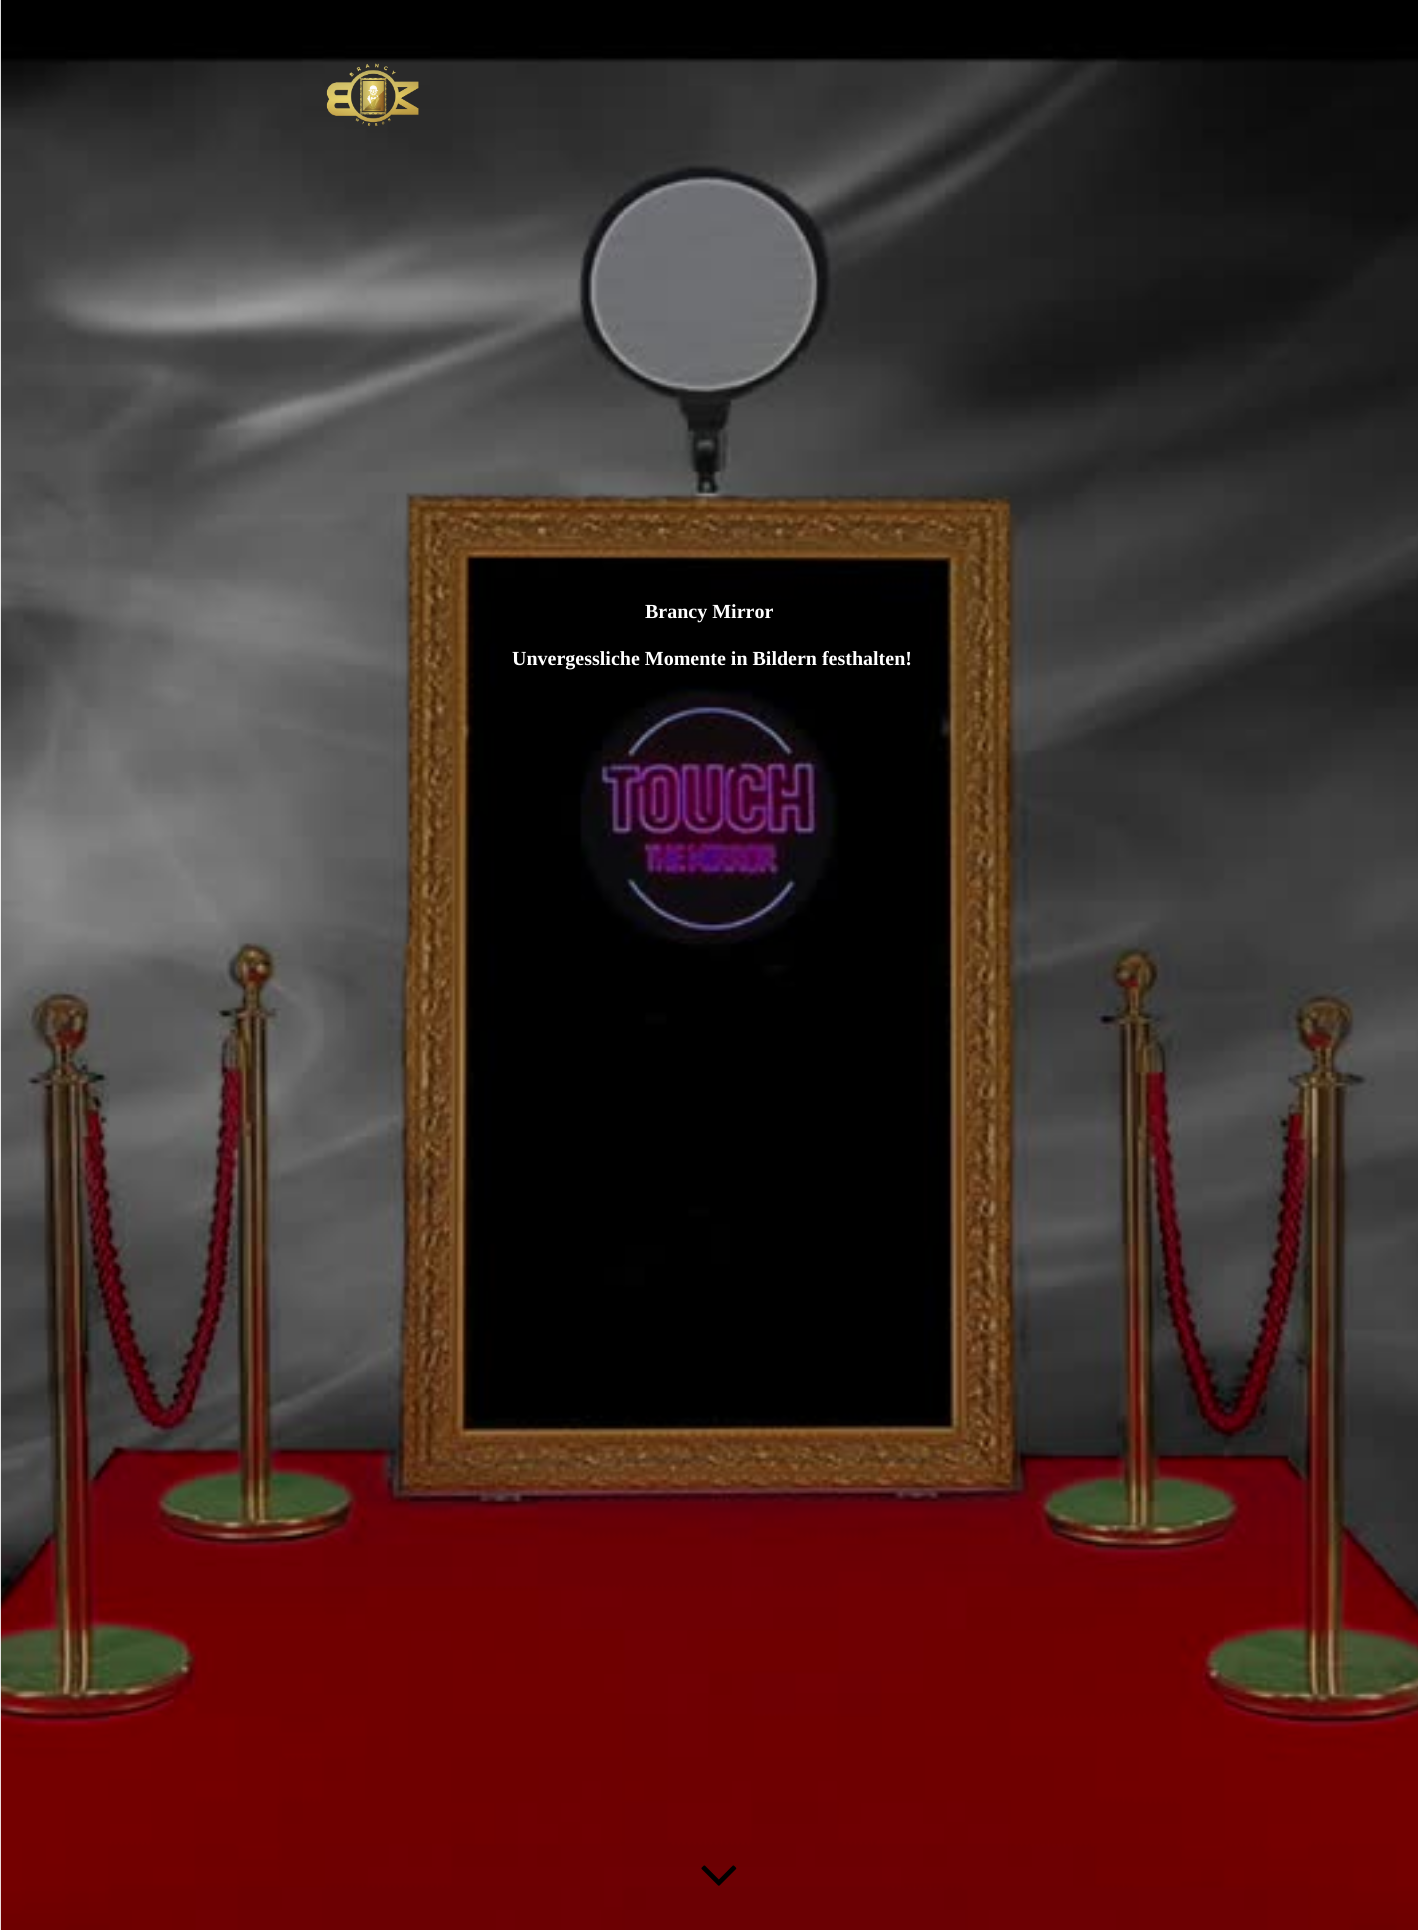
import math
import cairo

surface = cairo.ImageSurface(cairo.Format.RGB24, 1418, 1930)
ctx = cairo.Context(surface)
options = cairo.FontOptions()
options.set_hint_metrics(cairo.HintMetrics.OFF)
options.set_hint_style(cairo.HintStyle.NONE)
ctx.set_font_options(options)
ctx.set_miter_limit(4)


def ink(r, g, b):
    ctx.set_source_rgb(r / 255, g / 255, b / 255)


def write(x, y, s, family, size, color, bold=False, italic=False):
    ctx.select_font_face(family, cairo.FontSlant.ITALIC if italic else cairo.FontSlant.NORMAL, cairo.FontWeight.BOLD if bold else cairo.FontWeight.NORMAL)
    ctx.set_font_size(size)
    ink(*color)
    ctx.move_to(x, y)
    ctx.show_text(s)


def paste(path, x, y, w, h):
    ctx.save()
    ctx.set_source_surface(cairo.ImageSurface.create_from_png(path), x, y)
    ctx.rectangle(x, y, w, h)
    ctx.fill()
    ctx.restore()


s1 = dict(family="Liberation Serif", size=20, color=(255, 255, 255), bold=True)

ink(255, 255, 255)
ctx.paint()
paste("pic1.png", 0, 0, 1349, 1930)
paste("pic2.png", 326, 63, 93, 64)
write(645, 618, "Brancy Mirror", **s1)
write(512, 665, "Unvergessliche Momente in Bildern festhalten!", **s1)
paste("pic3.png", 701, 1865, 36, 21)
paste("pic4.png", 1349, 0, 69, 1930)
surface.write_to_png("screenshot.png")
